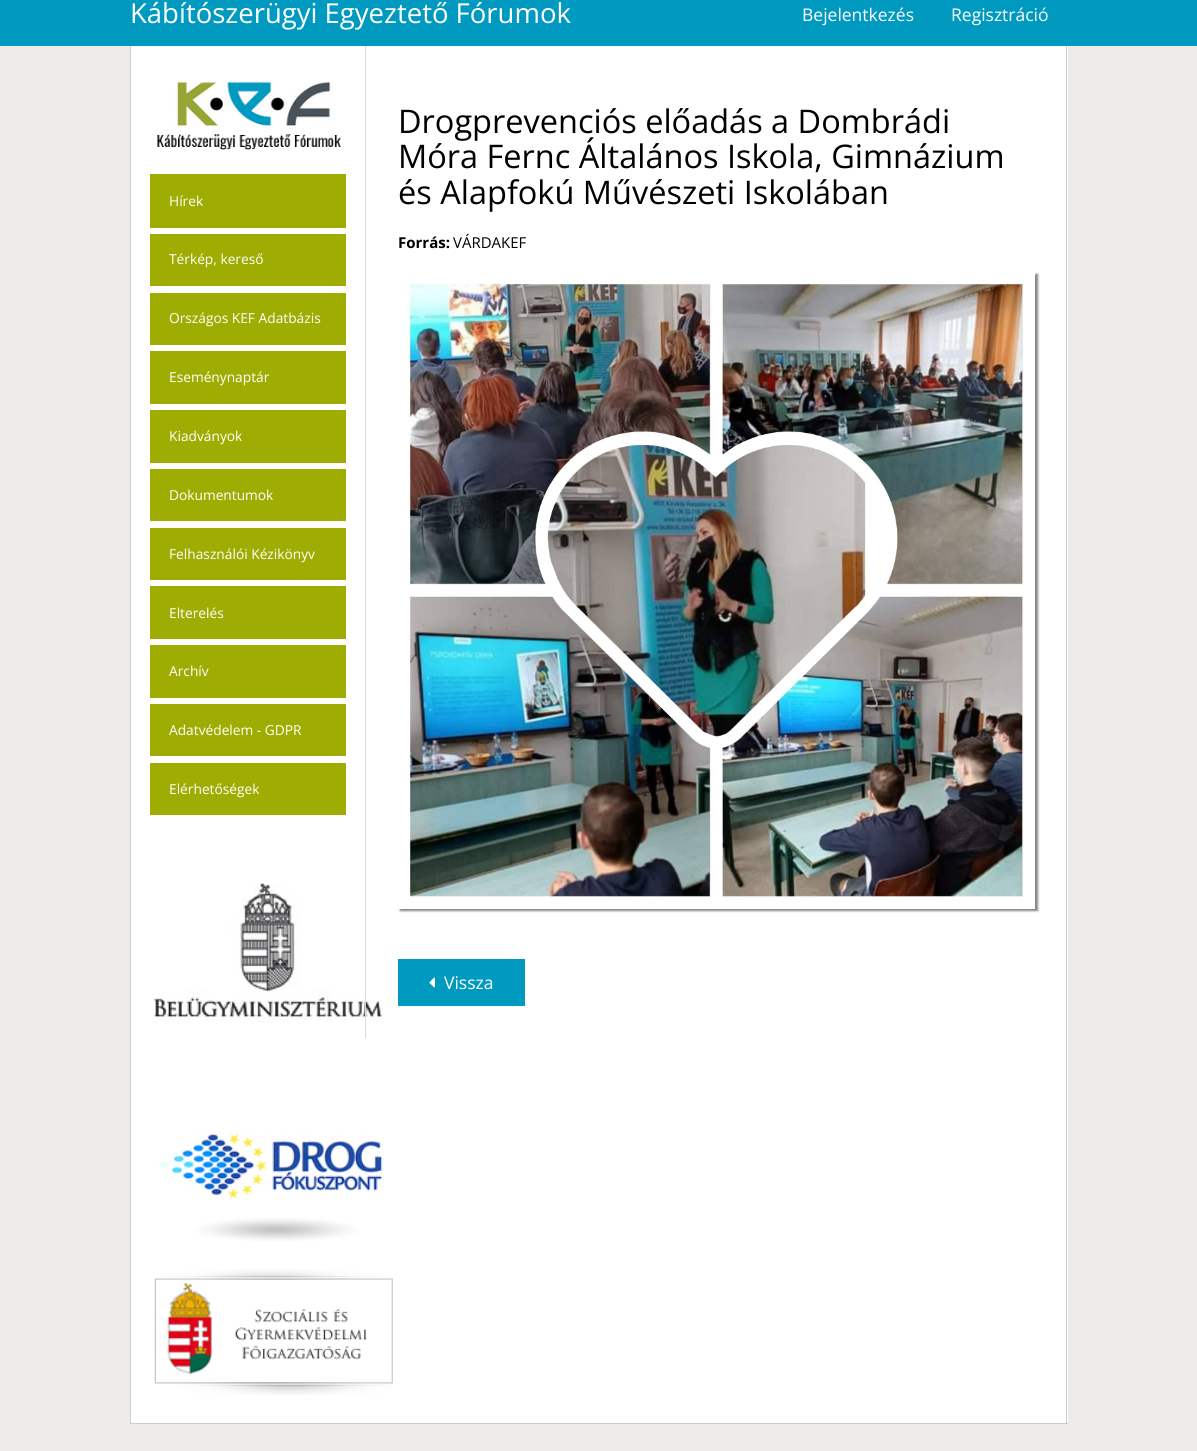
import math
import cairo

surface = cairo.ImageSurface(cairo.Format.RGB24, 1197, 1451)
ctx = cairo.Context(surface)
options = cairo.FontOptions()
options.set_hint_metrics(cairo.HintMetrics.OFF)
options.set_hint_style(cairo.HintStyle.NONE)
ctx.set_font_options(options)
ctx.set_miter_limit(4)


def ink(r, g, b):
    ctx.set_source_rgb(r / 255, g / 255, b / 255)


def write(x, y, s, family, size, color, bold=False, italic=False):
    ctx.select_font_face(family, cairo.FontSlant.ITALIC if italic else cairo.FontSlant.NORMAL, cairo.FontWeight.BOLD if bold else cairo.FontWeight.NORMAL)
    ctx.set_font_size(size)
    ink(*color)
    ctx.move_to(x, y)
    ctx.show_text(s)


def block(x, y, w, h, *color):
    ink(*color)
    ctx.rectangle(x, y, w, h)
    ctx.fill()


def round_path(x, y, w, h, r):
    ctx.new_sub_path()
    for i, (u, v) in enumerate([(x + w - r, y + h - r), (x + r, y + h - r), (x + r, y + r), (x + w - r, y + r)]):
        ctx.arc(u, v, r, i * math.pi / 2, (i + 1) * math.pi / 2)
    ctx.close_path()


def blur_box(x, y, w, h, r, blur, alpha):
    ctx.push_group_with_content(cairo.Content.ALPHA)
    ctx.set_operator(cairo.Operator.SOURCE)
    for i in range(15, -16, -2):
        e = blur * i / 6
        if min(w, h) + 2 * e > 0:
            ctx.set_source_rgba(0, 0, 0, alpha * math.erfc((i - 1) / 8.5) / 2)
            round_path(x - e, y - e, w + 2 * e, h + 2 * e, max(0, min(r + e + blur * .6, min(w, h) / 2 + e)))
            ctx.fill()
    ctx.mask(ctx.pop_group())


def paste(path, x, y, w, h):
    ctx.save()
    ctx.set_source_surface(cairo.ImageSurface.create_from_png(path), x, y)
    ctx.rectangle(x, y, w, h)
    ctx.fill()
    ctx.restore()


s1 = dict(family="Open Sans", size=27.5, color=(255, 255, 255))
s2 = dict(family="Open Sans", size=17.5, color=(255, 255, 255))
s3 = dict(family="Open Sans", size=13.75, color=(255, 255, 255))
s4 = dict(family="Open Sans", size=32.5, color=(0, 0, 0))
s5 = dict(family="Open Sans", size=15, color=(0, 0, 0), bold=True)
s6 = dict(family="Open Sans", size=15, color=(0, 0, 0))

ink(237, 236, 232)
ctx.paint()
block(0, 0, 1197, 46, 0, 154, 192)
write(130, 23, "Kábítószerügyi Egyeztető Fórumok", **s1)
write(802, 21, "Bejelentkezés", **s2)
write(951, 21, "Regisztráció", **s2)
block(131, 46, 937, 1377, 255, 255, 255)
block(1066, 46, 1, 1378, 204, 204, 204)
block(130, 1423, 938, 1, 204, 204, 204)
block(130, 46, 1, 1378, 204, 204, 204)
paste("pic1.png", 157, 81, 184, 69)
block(150, 174, 196, 54, 159, 172, 1)
write(169, 206, "Hírek", **s3)
block(150, 234, 196, 52, 159, 172, 1)
write(169, 264, "Térkép, kereső", **s3)
block(150, 293, 196, 52, 159, 172, 1)
write(169, 323, "Országos KEF Adatbázis", **s3)
block(150, 351, 196, 53, 159, 172, 1)
write(169, 382, "Eseménynaptár", **s3)
block(150, 410, 196, 53, 159, 172, 1)
write(169, 441, "Kiadványok", **s3)
block(150, 469, 196, 52, 159, 172, 1)
write(169, 500, "Dokumentumok", **s3)
block(150, 528, 196, 52, 159, 172, 1)
write(169, 559, "Felhasználói Kézikönyv", **s3)
block(150, 586, 196, 53, 159, 172, 1)
write(169, 618, "Elterelés", **s3)
block(150, 645, 196, 53, 159, 172, 1)
write(169, 676, "Archív", **s3)
block(150, 704, 196, 52, 159, 172, 1)
write(169, 735, "Adatvédelem - GDPR", **s3)
block(150, 763, 196, 52, 159, 172, 1)
write(169, 794, "Elérhetőségek", **s3)
paste("pic2.png", 154, 883, 228, 139)
paste("pic3.png", 159, 1132, 224, 109)
paste("pic4.png", 154, 1269, 239, 126)
block(365, 46, 1, 992, 218, 218, 218)
write(398, 133, "Drogprevenciós előadás a Dombrádi", **s4)
write(398, 168, "Móra Fernc Általános Iskola, Gimnázium", **s4)
write(398, 204, "és Alapfokú Művészeti Iskolában", **s4)
write(398, 248, "Forrás:", **s5)
write(453, 248, "VÁRDAKEF", **s6)
ctx.save()
ctx.set_fill_rule(cairo.FillRule.EVEN_ODD)
ctx.new_path()
ctx.move_to(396, 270)
ctx.line_to(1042, 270)
ctx.line_to(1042, 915)
ctx.line_to(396, 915)
ctx.close_path()
ctx.move_to(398, 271)
ctx.line_to(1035, 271)
ctx.line_to(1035, 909)
ctx.line_to(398, 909)
ctx.close_path()
ctx.clip()
ink(136, 136, 136)
blur_box(400, 274, 638, 637, 0, 1, 1)
ctx.restore()
paste("pic5.png", 399, 282, 636, 627)
block(398, 959, 127, 47, 0, 154, 192)
paste("pic6.png", 429, 977, 6, 11)
write(444, 989, "Vissza", **s2)
surface.write_to_png("screenshot.png")
